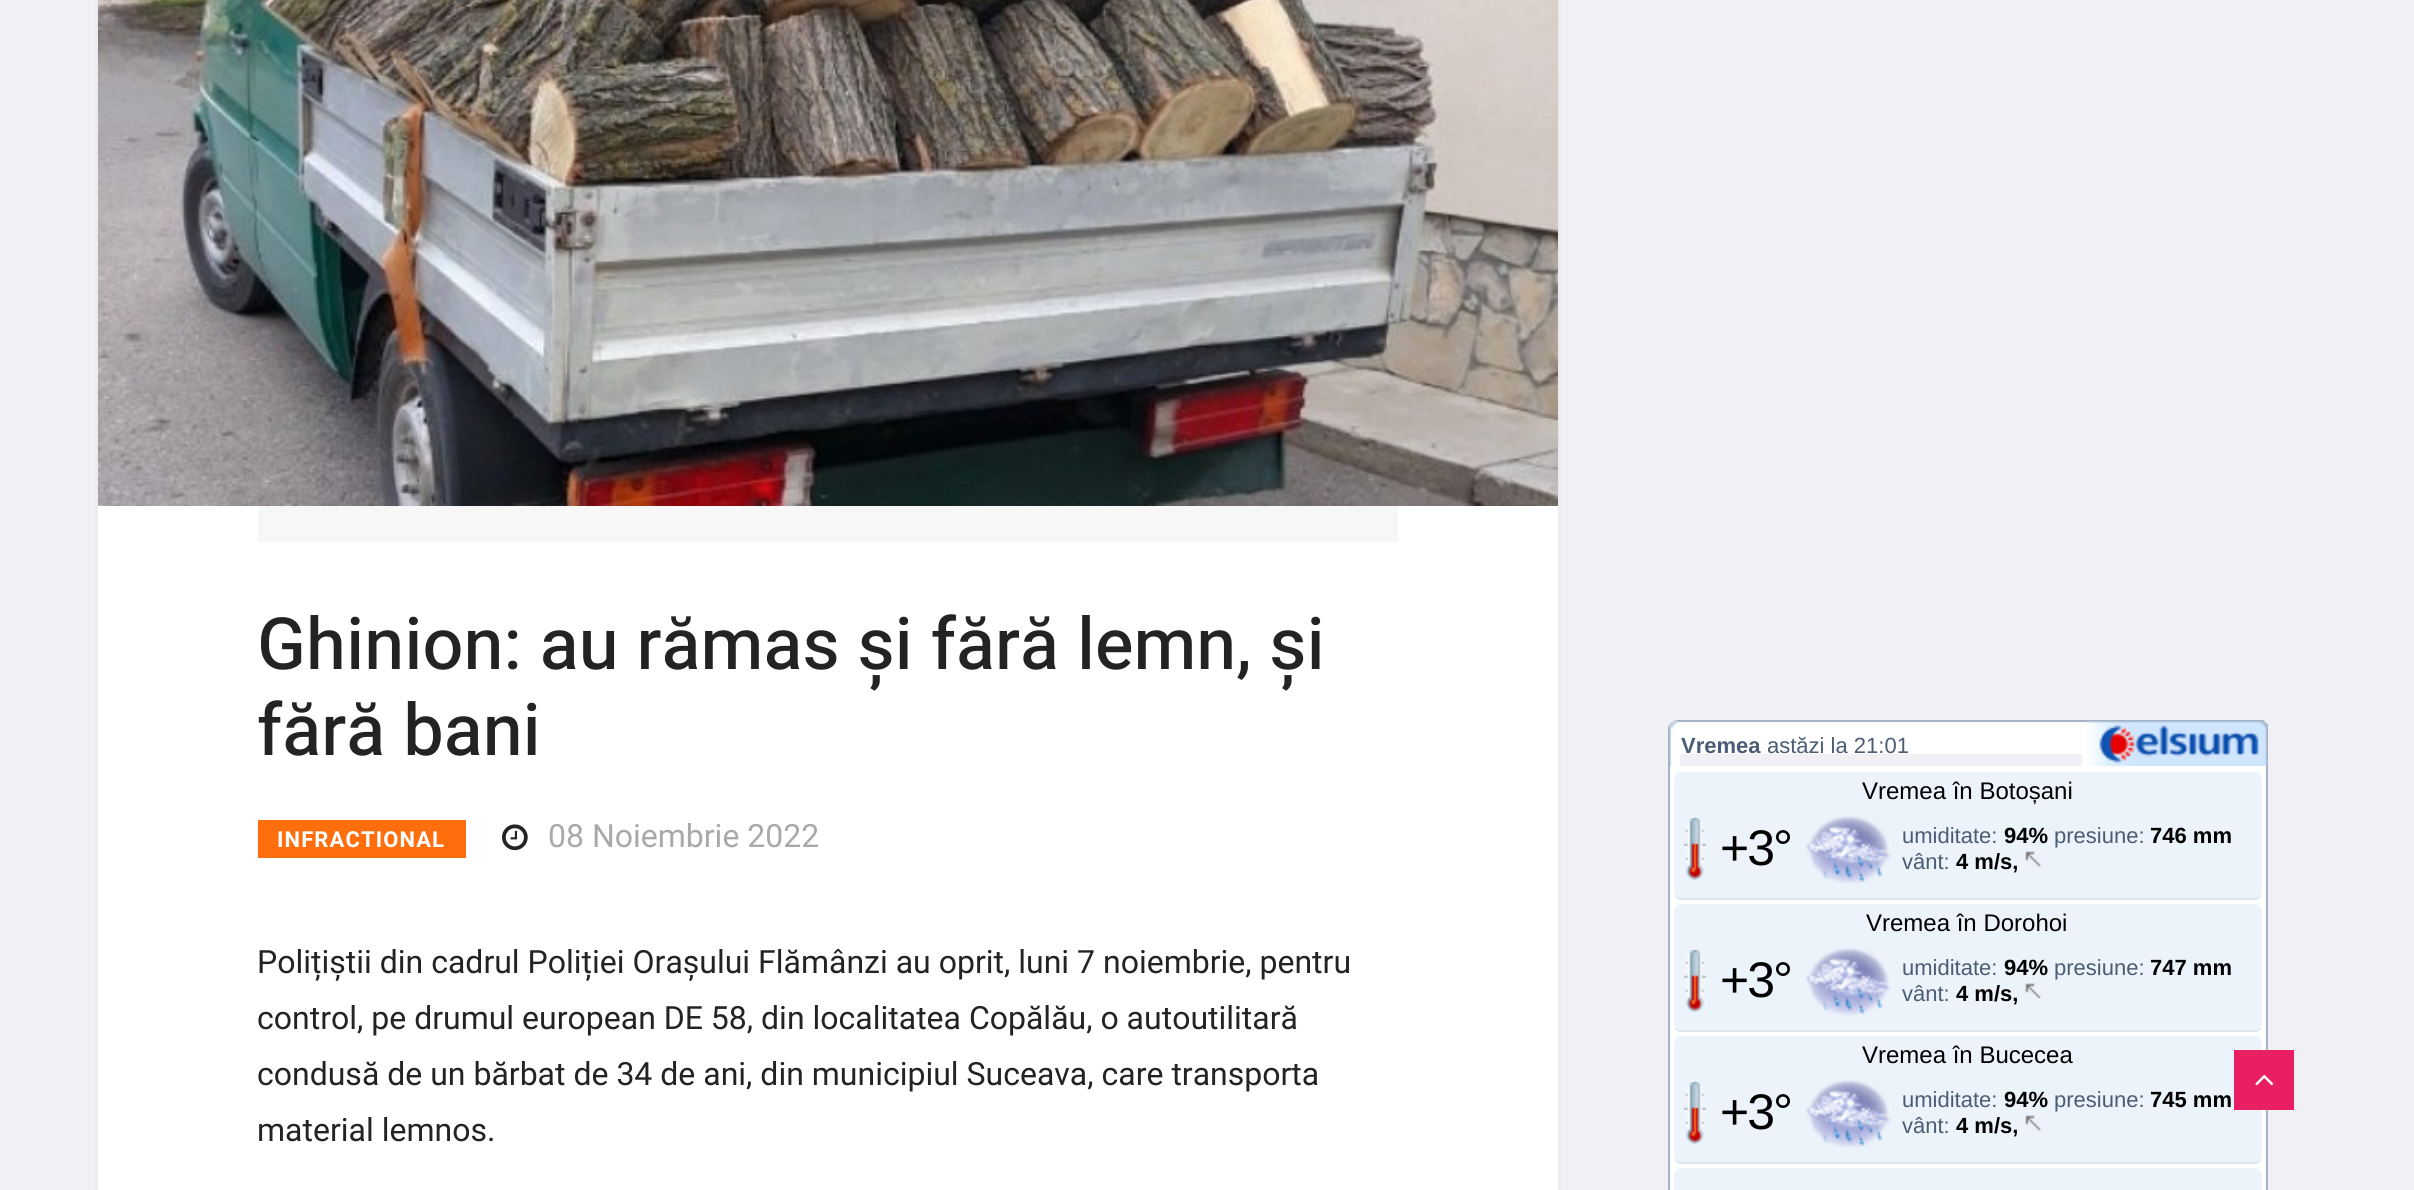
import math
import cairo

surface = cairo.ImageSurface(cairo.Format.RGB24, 2414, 1190)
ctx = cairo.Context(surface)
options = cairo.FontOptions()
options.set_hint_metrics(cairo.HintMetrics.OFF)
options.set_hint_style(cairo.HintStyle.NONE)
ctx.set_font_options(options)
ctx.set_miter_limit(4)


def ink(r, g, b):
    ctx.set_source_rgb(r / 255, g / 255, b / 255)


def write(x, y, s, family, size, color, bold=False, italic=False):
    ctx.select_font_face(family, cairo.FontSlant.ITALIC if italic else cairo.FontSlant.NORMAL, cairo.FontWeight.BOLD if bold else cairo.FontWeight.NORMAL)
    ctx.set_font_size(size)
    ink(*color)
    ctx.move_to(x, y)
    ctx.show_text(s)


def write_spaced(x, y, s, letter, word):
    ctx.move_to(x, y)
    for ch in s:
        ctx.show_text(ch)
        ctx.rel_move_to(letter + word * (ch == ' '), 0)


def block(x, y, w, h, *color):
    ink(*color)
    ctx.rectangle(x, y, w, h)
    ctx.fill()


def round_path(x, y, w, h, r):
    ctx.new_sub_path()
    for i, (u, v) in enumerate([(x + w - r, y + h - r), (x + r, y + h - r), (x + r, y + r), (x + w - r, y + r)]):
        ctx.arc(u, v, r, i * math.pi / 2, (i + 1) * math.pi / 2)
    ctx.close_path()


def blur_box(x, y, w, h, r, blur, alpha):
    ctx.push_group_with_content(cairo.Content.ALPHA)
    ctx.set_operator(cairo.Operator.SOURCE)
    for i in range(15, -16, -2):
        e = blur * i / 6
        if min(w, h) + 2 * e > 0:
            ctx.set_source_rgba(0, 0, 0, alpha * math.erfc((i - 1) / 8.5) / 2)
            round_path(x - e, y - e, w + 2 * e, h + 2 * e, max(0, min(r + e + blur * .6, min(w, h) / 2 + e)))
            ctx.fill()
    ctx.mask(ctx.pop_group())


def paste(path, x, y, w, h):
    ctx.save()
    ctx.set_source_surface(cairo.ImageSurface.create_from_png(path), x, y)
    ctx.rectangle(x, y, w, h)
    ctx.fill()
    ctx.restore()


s1 = dict(family="Heebo Medium", size=72, color=(35, 35, 35))
s2 = dict(family="Roboto", size=32, color=(169, 169, 169))
s3 = dict(family="Roboto", size=32, color=(35, 35, 35))
s4 = dict(family="Liberation Sans", size=22, color=(74, 93, 117), bold=True)
s5 = dict(family="Liberation Sans", size=22, color=(74, 93, 117))
s6 = dict(family="Liberation Sans", size=24, color=(0, 0, 0))
s7 = dict(family="Liberation Sans", size=22, color=(0, 0, 0), bold=True)

ink(241, 240, 245)
ctx.paint()
ink(0, 0, 0)
blur_box(98, -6, 1460, 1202, 0, 2, 0.08)
block(98, 506, 1460, 684, 255, 255, 255)
paste("pic1.png", 98, 0, 1460, 506)
block(258, 506, 1140, 36, 247, 247, 247)
write(257, 669, "Ghinion: au rămas și fără lemn, și", **s1)
write(257, 755, "fără bani", **s1)
block(258, 820, 208, 38, 255, 110, 13)
ctx.select_font_face("Heebo", cairo.FontSlant.NORMAL, cairo.FontWeight.BOLD)
ctx.set_font_size(22)
ink(255, 255, 255)
write_spaced(277, 847, "INFRACTIONAL", 1.1, 0)
paste("pic2.png", 502, 824, 26, 27)
write(548, 847, "08 Noiembrie 2022", **s2)
write(257, 973, "Polițiștii din cadrul Poliției Orașului Flămânzi au oprit, luni 7 noiembrie, pentru", **s3)
write(257, 1029, "control, pe drumul european DE 58, din localitatea Copălău, o autoutilitară", **s3)
write(257, 1085, "condusă de un bărbat de 34 de ani, din municipiul Suceava, care transporta", **s3)
write(257, 1141, "material lemnos.", **s3)
paste("pic3.png", 2082, 720, 186, 46)
paste("pic4.png", 1668, 720, 12, 46)
block(1678, 722, 408, 32, 255, 255, 255)
block(1678, 720, 408, 2, 163, 180, 200)
write(1681, 753, "Vremea", **s4)
write(1767, 753, "astăzi la 21:01", **s5)
block(1670, 766, 596, 424, 255, 255, 255)
block(2266, 766, 2, 424, 163, 180, 200)
block(1668, 766, 2, 424, 163, 180, 200)
ink(236, 243, 250)
round_path(1672, 770, 592, 130, 10)
ctx.fill()
ctx.new_path()
ctx.move_to(2260.5, 896.5)
ctx.curve_to(2258.5, 898, 2256.5, 899, 2254, 899)
ctx.line_to(1682, 899)
ctx.curve_to(1679.5, 899, 1677.5, 898, 1675.5, 896.5)
ink(223, 230, 237)
ctx.stroke()
ctx.new_path()
ctx.move_to(1675.5, 896.5)
ctx.curve_to(1674, 894.5, 1673, 892.5, 1673, 890)
ctx.line_to(1673, 780)
ctx.curve_to(1673, 777.5, 1674, 775.5, 1675.5, 773.5)
ctx.curve_to(1677.5, 772, 1679.5, 771, 1682, 771)
ctx.line_to(2254, 771)
ctx.curve_to(2256.5, 771, 2258.5, 772, 2260.5, 773.5)
ctx.curve_to(2262, 775.5, 2263, 777.5, 2263, 780)
ctx.line_to(2263, 890)
ctx.curve_to(2263, 892.5, 2262, 894.5, 2260.5, 896.5)
ink(255, 255, 255)
ctx.stroke()
write(1862, 799, "Vremea în Botoșani", **s6)
paste("pic5.png", 1684, 818, 22, 62)
ctx.set_font_size(50)
write_spaced(1720, 865, "+3°", -2, 0)
paste("pic6.png", 1806, 816, 86, 68)
write(1902, 843, "umiditate:", **s5)
write(2004, 843, "94%", **s7)
write(2054, 843, "presiune:", **s5)
write(2150, 843, "746 mm", **s7)
write(1902, 869, "vânt:", **s5)
write(1956, 869, "4 m/s,", **s7)
paste("pic7.png", 2025, 851, 16, 16)
ink(236, 243, 250)
round_path(1672, 902, 592, 130, 10)
ctx.fill()
ctx.new_path()
ctx.move_to(2260.5, 1028.5)
ctx.curve_to(2258.5, 1030, 2256.5, 1031, 2254, 1031)
ctx.line_to(1682, 1031)
ctx.curve_to(1679.5, 1031, 1677.5, 1030, 1675.5, 1028.5)
ink(223, 230, 237)
ctx.stroke()
ctx.new_path()
ctx.move_to(1675.5, 1028.5)
ctx.curve_to(1674, 1026.5, 1673, 1024.5, 1673, 1022)
ctx.line_to(1673, 912)
ctx.curve_to(1673, 909.5, 1674, 907.5, 1675.5, 905.5)
ctx.curve_to(1677.5, 904, 1679.5, 903, 1682, 903)
ctx.line_to(2254, 903)
ctx.curve_to(2256.5, 903, 2258.5, 904, 2260.5, 905.5)
ctx.curve_to(2262, 907.5, 2263, 909.5, 2263, 912)
ctx.line_to(2263, 1022)
ctx.curve_to(2263, 1024.5, 2262, 1026.5, 2260.5, 1028.5)
ink(255, 255, 255)
ctx.stroke()
write(1866, 931, "Vremea în Dorohoi", **s6)
paste("pic5.png", 1684, 950, 22, 62)
ctx.set_font_size(50)
write_spaced(1720, 997, "+3°", -2, 0)
paste("pic6.png", 1806, 948, 86, 68)
write(1902, 975, "umiditate:", **s5)
write(2004, 975, "94%", **s7)
write(2054, 975, "presiune:", **s5)
write(2150, 975, "747 mm", **s7)
write(1902, 1001, "vânt:", **s5)
write(1956, 1001, "4 m/s,", **s7)
paste("pic7.png", 2025, 983, 16, 16)
ink(236, 243, 250)
round_path(1672, 1034, 592, 130, 10)
ctx.fill()
ctx.new_path()
ctx.move_to(2260.5, 1160.5)
ctx.curve_to(2258.5, 1162, 2256.5, 1163, 2254, 1163)
ctx.line_to(1682, 1163)
ctx.curve_to(1679.5, 1163, 1677.5, 1162, 1675.5, 1160.5)
ink(223, 230, 237)
ctx.stroke()
ctx.new_path()
ctx.move_to(1675.5, 1160.5)
ctx.curve_to(1674, 1158.5, 1673, 1156.5, 1673, 1154)
ctx.line_to(1673, 1044)
ctx.curve_to(1673, 1041.5, 1674, 1039.5, 1675.5, 1037.5)
ctx.curve_to(1677.5, 1036, 1679.5, 1035, 1682, 1035)
ctx.line_to(2254, 1035)
ctx.curve_to(2256.5, 1035, 2258.5, 1036, 2260.5, 1037.5)
ctx.curve_to(2262, 1039.5, 2263, 1041.5, 2263, 1044)
ctx.line_to(2263, 1154)
ctx.curve_to(2263, 1156.5, 2262, 1158.5, 2260.5, 1160.5)
ink(255, 255, 255)
ctx.stroke()
write(1862, 1063, "Vremea în Bucecea", **s6)
paste("pic5.png", 1684, 1082, 22, 62)
ctx.set_font_size(50)
write_spaced(1720, 1129, "+3°", -2, 0)
paste("pic6.png", 1806, 1080, 86, 68)
write(1902, 1107, "umiditate:", **s5)
write(2004, 1107, "94%", **s7)
write(2054, 1107, "presiune:", **s5)
write(2150, 1107, "745 mm", **s7)
write(1902, 1133, "vânt:", **s5)
write(1956, 1133, "4 m/s,", **s7)
paste("pic7.png", 2025, 1115, 16, 16)
ink(236, 243, 250)
round_path(1672, 1166, 592, 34, 10)
ctx.fill()
ctx.new_path()
ctx.move_to(1675.5, 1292.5)
ctx.curve_to(1674, 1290.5, 1673, 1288.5, 1673, 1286)
ctx.line_to(1673, 1176)
ctx.curve_to(1673, 1173.5, 1674, 1171.5, 1675.5, 1169.5)
ctx.curve_to(1677.5, 1168, 1679.5, 1167, 1682, 1167)
ctx.line_to(2254, 1167)
ctx.curve_to(2256.5, 1167, 2258.5, 1168, 2260.5, 1169.5)
ctx.curve_to(2262, 1171.5, 2263, 1173.5, 2263, 1176)
ctx.line_to(2263, 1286)
ctx.curve_to(2263, 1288.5, 2262, 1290.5, 2260.5, 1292.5)
ink(255, 255, 255)
ctx.stroke()
block(2234, 1050, 60, 60, 233, 30, 99)
paste("pic8.png", 2255, 1074, 19, 12)
surface.write_to_png("screenshot.png")
